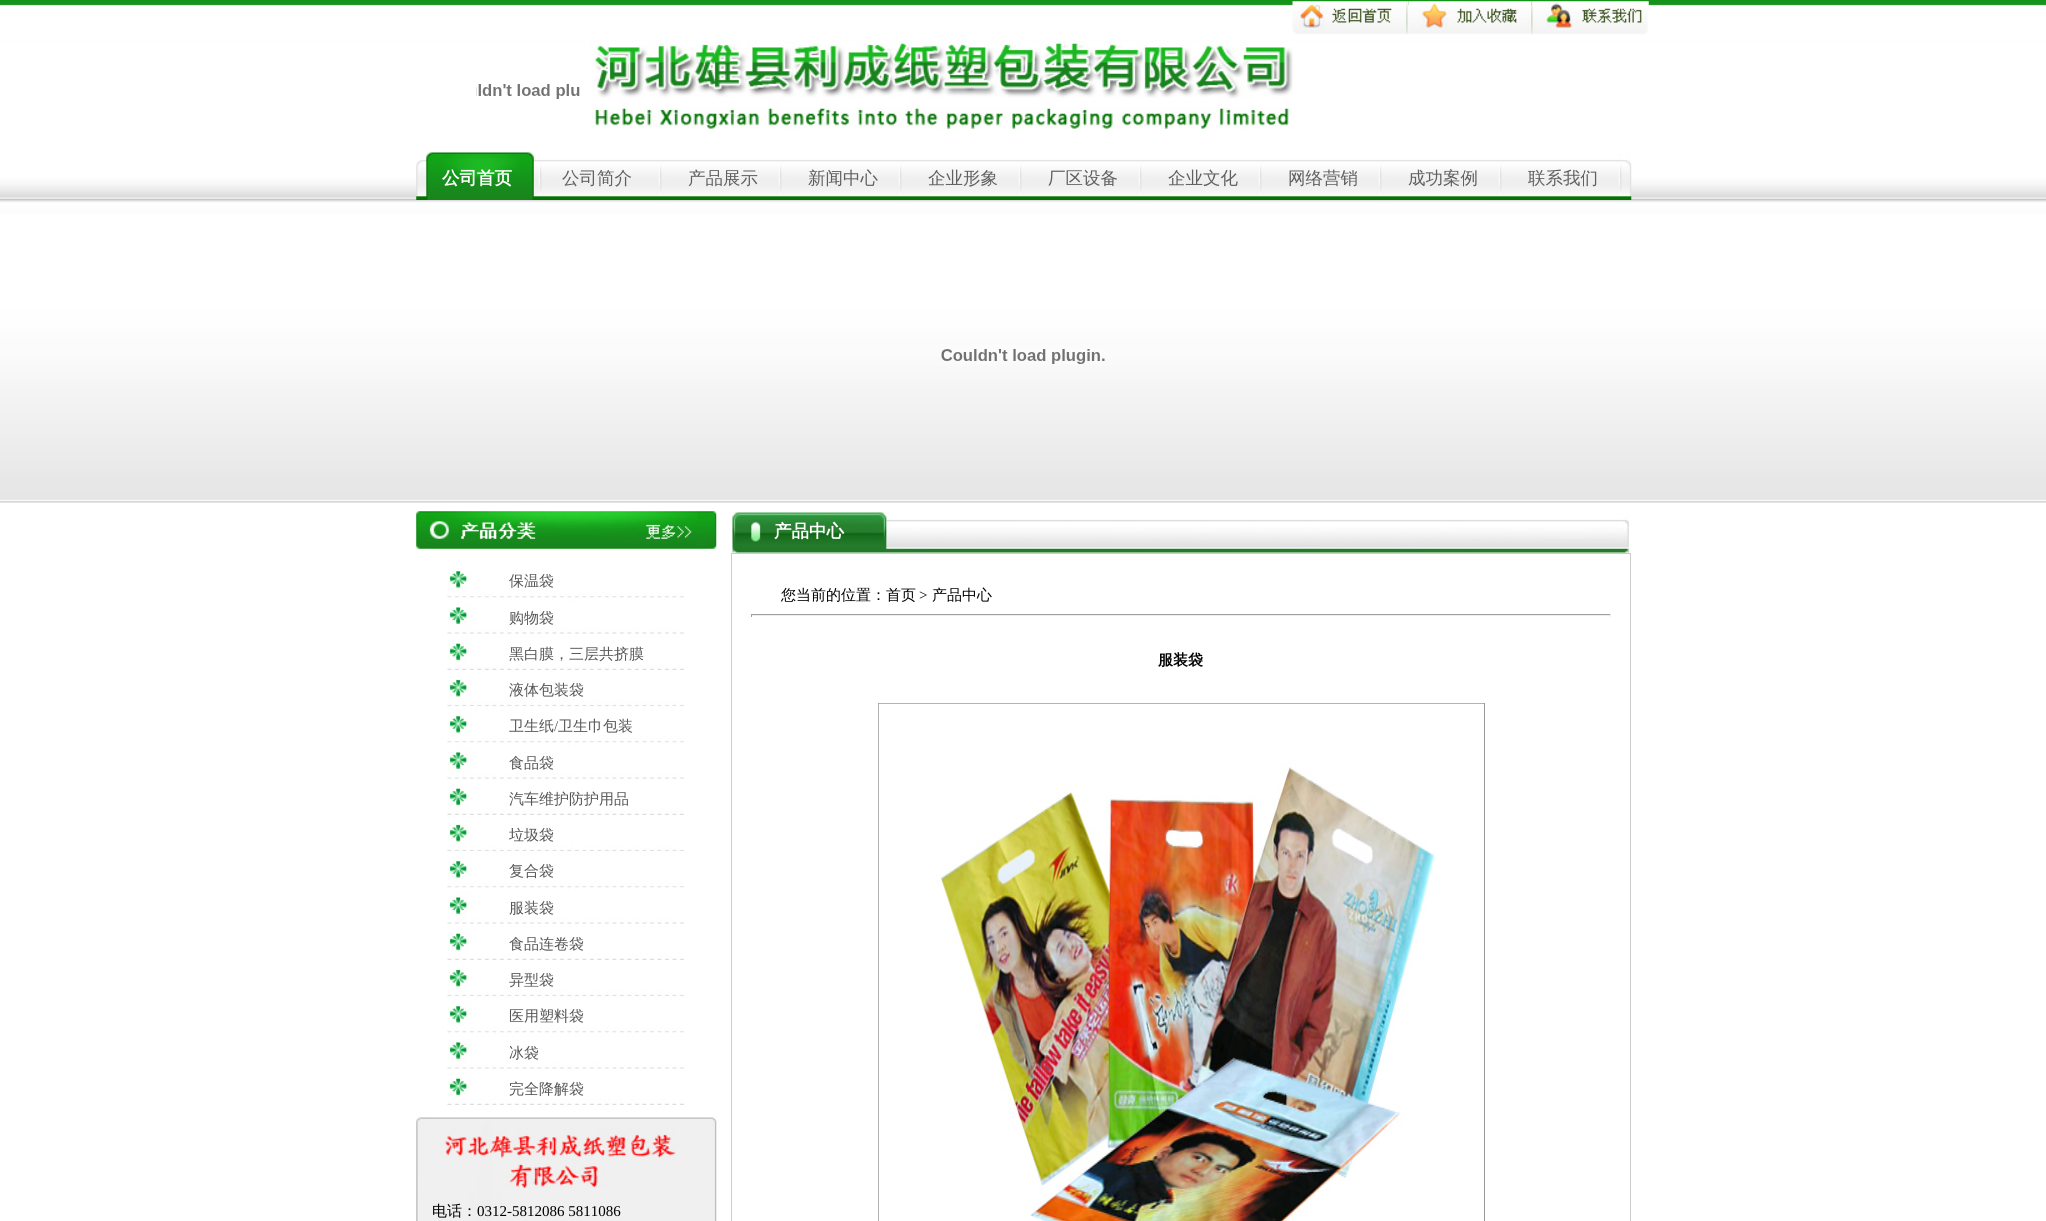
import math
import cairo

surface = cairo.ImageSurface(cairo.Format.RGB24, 2046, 1221)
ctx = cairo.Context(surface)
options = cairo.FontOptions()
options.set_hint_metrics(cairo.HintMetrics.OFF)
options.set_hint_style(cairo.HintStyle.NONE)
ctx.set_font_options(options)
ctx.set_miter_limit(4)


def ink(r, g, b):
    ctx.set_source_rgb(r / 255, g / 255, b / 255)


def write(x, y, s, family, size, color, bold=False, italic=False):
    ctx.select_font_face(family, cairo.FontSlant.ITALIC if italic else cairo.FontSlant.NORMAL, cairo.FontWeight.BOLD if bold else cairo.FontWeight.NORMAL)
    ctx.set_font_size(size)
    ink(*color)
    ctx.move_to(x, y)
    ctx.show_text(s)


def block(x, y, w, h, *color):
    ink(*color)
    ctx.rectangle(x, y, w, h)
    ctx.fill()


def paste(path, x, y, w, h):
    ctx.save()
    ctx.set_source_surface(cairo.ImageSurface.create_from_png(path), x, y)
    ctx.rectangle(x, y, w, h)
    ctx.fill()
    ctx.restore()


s1 = dict(family="WenQuanYi Zen Hei", size=17.5, color=(255, 255, 255), bold=True)
s2 = dict(family="WenQuanYi Zen Hei Medium", size=17.5, color=(95, 95, 95))
s3 = dict(family="WenQuanYi Zen Hei Medium", size=15, color=(86, 86, 86))
s4 = dict(family="Liberation Serif", size=15, color=(86, 86, 86))
s5 = dict(family="WenQuanYi Zen Hei Medium", size=15, color=(0, 0, 0))
s6 = dict(family="Liberation Serif", size=15, color=(0, 0, 0))
s7 = dict(family="WenQuanYi Zen Hei", size=15, color=(0, 0, 0), bold=True)

ink(255, 255, 255)
ctx.paint()
paste("pic1.png", 0, 0, 2046, 503)
paste("pic2.png", 1292, 1, 117, 34)
paste("pic3.png", 1408, 1, 124, 33)
paste("pic4.png", 1531, 1, 118, 34)
paste("pic5.png", 476, 84, 104, 15)
paste("pic6.png", 590, 40, 703, 90)
paste("pic7.png", 416, 152, 1216, 48)
write(442, 184, "公司首页", **s1)
write(562, 184, "公司简介", **s2)
write(688, 184, "产品展示", **s2)
write(808, 184, "新闻中心", **s2)
write(928, 184, "企业形象", **s2)
write(1048, 184, "厂区设备", **s2)
write(1168, 184, "企业文化", **s2)
write(1288, 184, "网络营销", **s2)
write(1408, 184, "成功案例", **s2)
write(1528, 184, "联系我们", **s2)
paste("pic8.png", 941, 349, 164, 15)
paste("pic9.png", 416, 511, 301, 38)
paste("pic10.png", 447, 571, 237, 27)
write(509, 586, "保温袋", **s3)
paste("pic11.png", 447, 597, 237, 37)
write(509, 623, "购物袋", **s3)
paste("pic12.png", 447, 633, 237, 37)
write(509, 659, "黑白膜，三层共挤膜", **s3)
paste("pic13.png", 447, 679, 237, 28)
write(509, 695, "液体包装袋", **s3)
paste("pic14.png", 447, 706, 237, 37)
write(509, 731, "卫生纸", **s3)
write(554, 731, "/", **s4)
write(558, 731, "卫生巾包装", **s3)
paste("pic11.png", 447, 742, 237, 37)
write(509, 768, "食品袋", **s3)
paste("pic15.png", 447, 778, 237, 37)
write(509, 804, "汽车维护防护用品", **s3)
paste("pic13.png", 447, 824, 237, 28)
write(509, 840, "垃圾袋", **s3)
paste("pic14.png", 447, 851, 237, 37)
write(509, 876, "复合袋", **s3)
paste("pic11.png", 447, 887, 237, 37)
write(509, 913, "服装袋", **s3)
paste("pic12.png", 447, 923, 237, 37)
write(509, 949, "食品连卷袋", **s3)
paste("pic13.png", 447, 969, 237, 28)
write(509, 985, "异型袋", **s3)
paste("pic14.png", 447, 996, 237, 37)
write(509, 1021, "医用塑料袋", **s3)
paste("pic11.png", 447, 1032, 237, 37)
write(509, 1058, "冰袋", **s3)
paste("pic12.png", 447, 1068, 237, 37)
write(509, 1094, "完全降解袋", **s3)
paste("pic16.png", 416, 1117, 301, 104)
write(432, 1216, "电话：", **s5)
write(477, 1216, "0312-5812086 5811086", **s6)
paste("pic17.png", 732, 512, 898, 41)
write(774, 537, "产品中心", **s1)
ctx.rectangle(731.5, 553.5, 899, 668)
ink(204, 204, 204)
ctx.set_line_width(1)
ctx.stroke()
write(781, 600, "您当前的位置：首页", **s5)
write(919, 600, ">", **s6)
write(932, 600, "产品中心", **s5)
block(751, 614, 860, 1, 159, 159, 159)
block(1610, 614, 1, 3, 238, 238, 238)
block(751, 615, 860, 1, 238, 238, 238)
block(751, 614, 1, 3, 159, 159, 159)
write(1158, 665, "服装袋", **s7)
ctx.rectangle(878.5, 703.5, 606, 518)
ink(153, 153, 153)
ctx.stroke()
paste("pic18.png", 878, 703, 606, 518)
surface.write_to_png("screenshot.png")
